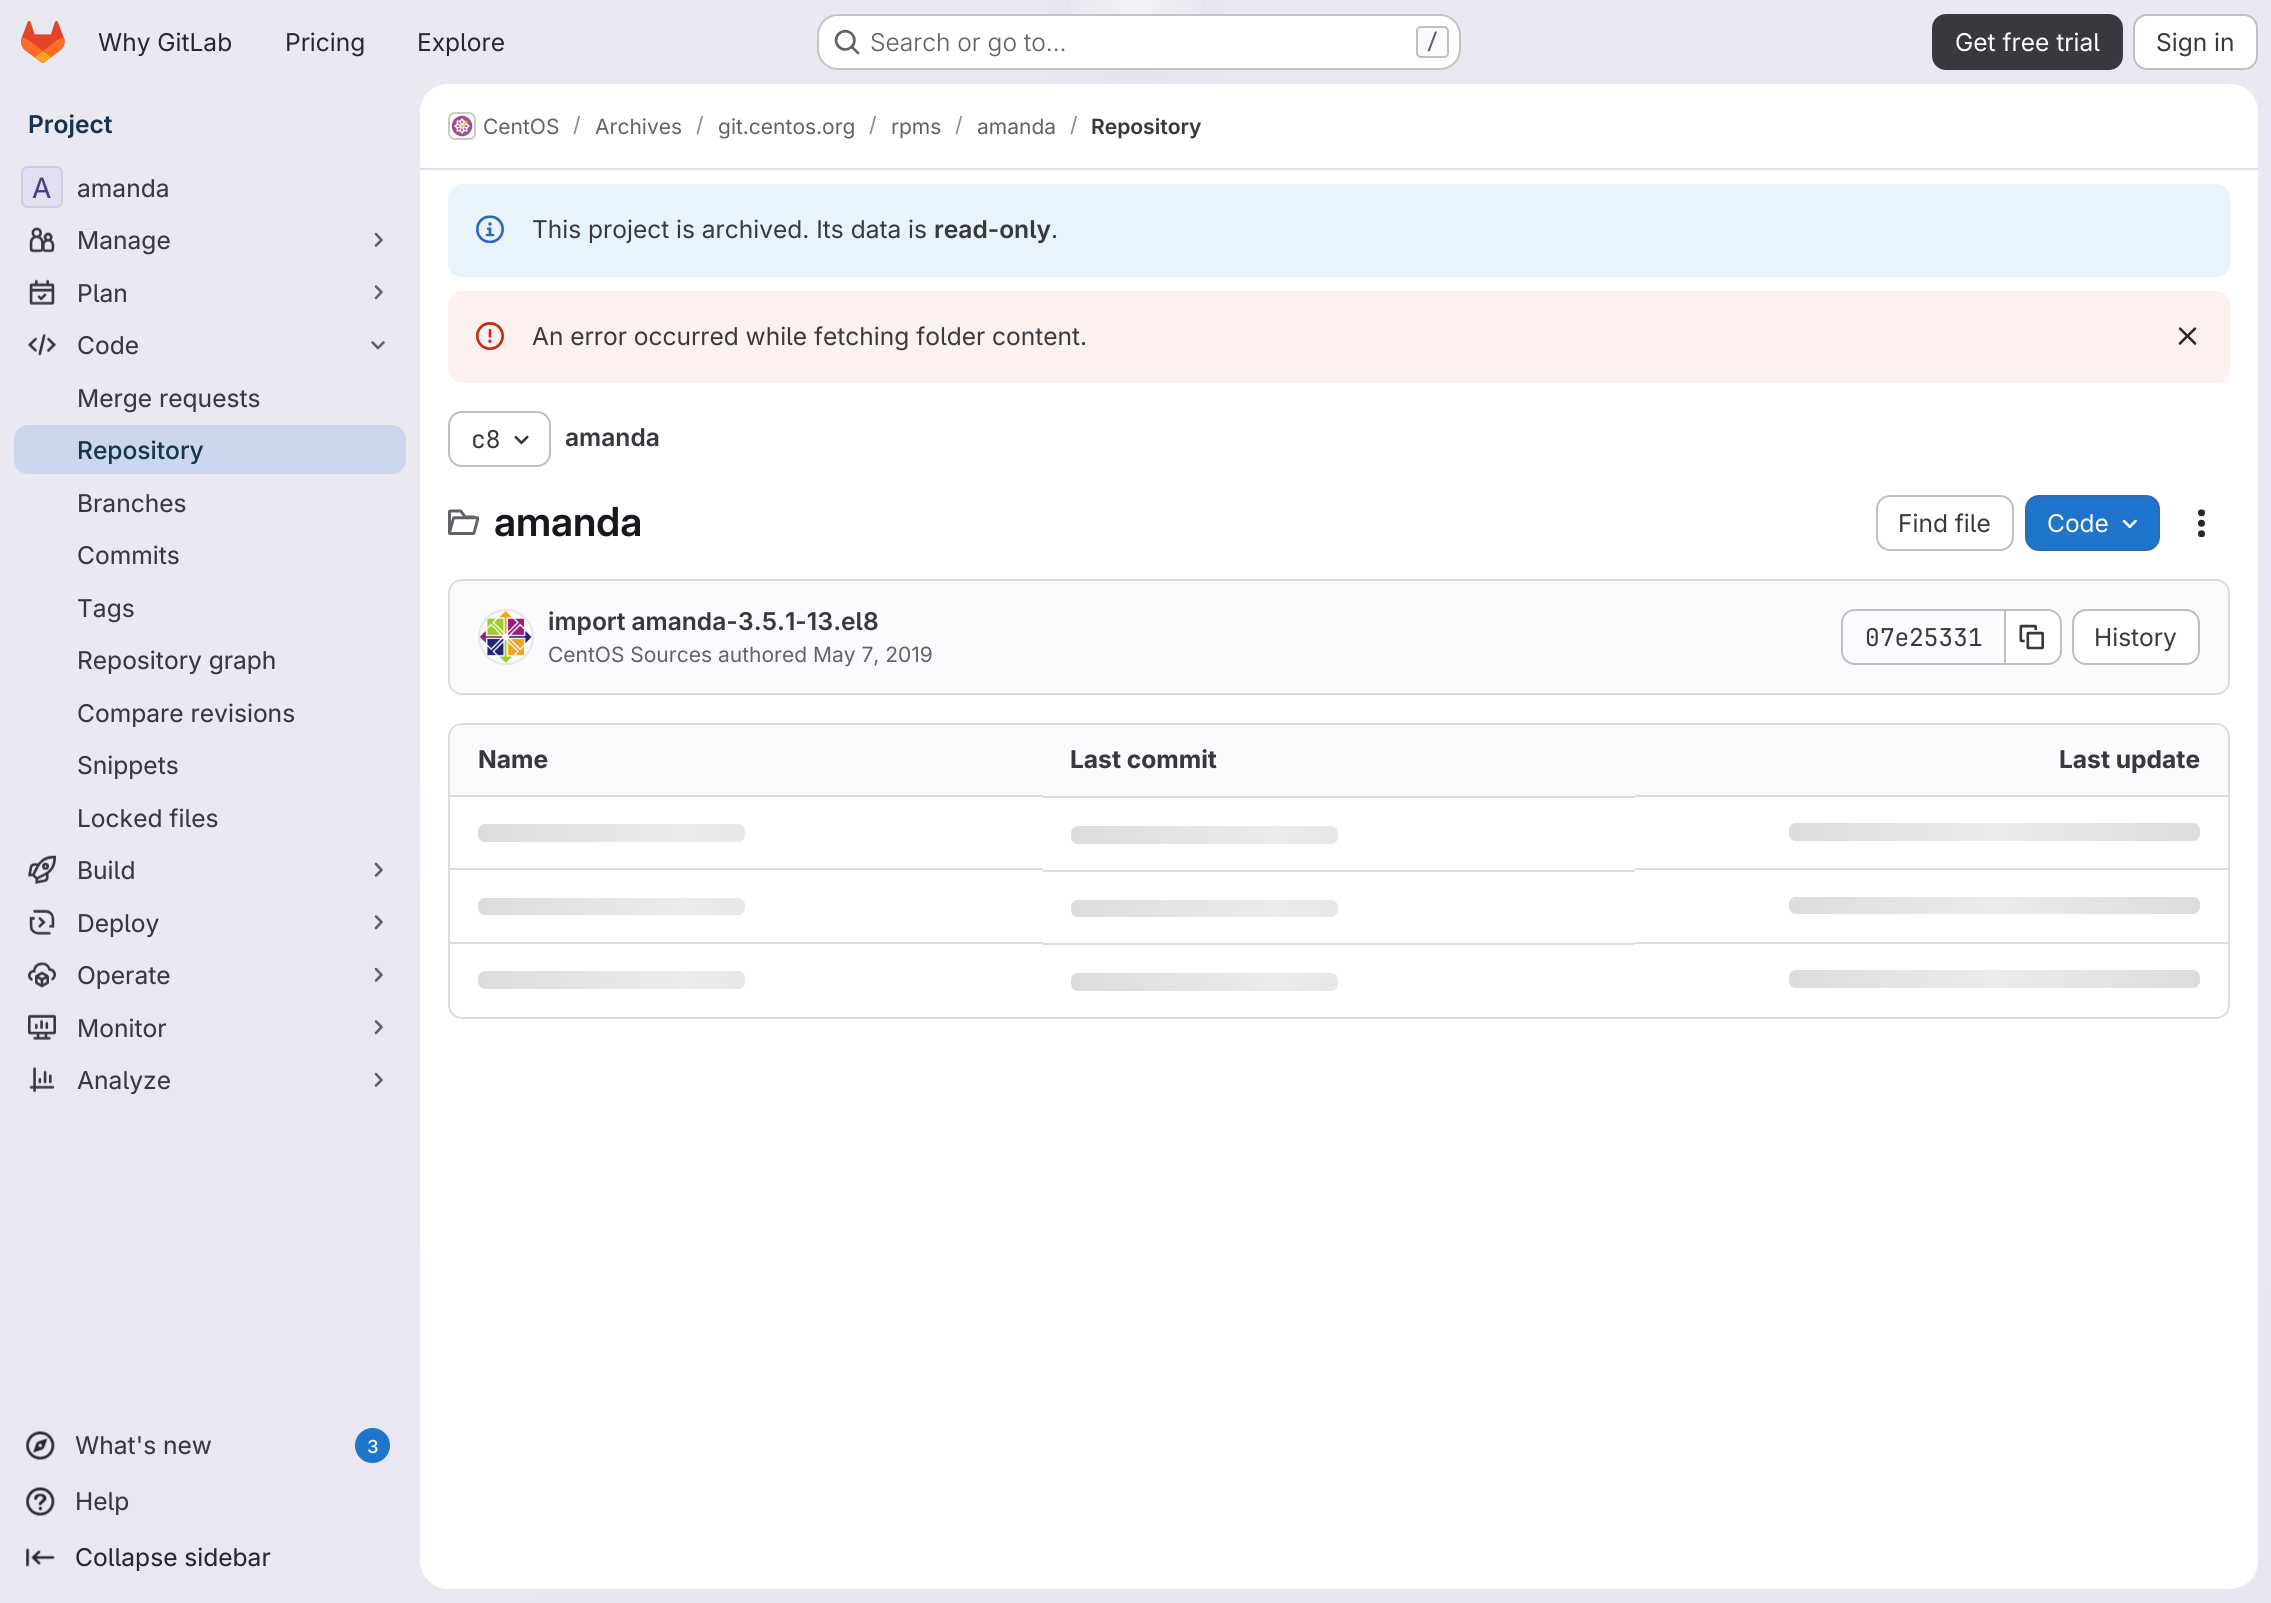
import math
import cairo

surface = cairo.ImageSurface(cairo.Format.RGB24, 2271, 1603)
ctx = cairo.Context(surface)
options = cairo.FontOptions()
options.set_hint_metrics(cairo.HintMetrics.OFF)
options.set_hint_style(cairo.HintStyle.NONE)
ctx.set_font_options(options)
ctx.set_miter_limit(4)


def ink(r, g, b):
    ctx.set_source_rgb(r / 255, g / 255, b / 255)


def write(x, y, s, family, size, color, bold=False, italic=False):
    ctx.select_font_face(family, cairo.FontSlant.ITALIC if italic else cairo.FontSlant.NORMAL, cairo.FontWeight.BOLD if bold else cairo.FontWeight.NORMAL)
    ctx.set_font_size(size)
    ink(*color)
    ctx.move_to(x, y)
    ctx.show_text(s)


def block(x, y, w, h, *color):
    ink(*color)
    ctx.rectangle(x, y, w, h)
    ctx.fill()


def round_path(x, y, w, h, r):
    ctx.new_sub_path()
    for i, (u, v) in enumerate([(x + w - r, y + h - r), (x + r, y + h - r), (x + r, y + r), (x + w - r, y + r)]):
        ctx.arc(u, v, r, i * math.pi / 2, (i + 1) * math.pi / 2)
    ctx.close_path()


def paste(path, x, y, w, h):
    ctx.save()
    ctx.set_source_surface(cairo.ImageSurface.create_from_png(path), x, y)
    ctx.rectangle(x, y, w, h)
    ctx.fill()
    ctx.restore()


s1 = dict(family="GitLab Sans", size=24.5, color=(40, 39, 45))
s2 = dict(family="GitLab Sans Light", size=24.5, color=(98, 97, 104))
s3 = dict(family="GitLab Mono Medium", size=21, color=(98, 97, 104))
s4 = dict(family="GitLab Sans", size=24.5, color=(255, 255, 255))
s5 = dict(family="GitLab Sans", size=24.5, color=(58, 56, 63))
s6 = dict(family="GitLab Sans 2 SemiBold", size=24.5, color=(24, 51, 78))
s7 = dict(family="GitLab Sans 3", size=28, color=(73, 60, 131))
s8 = dict(family="GitLab Sans 2", size=24.5, color=(58, 56, 63))
s9 = dict(family="GitLab Sans Medium", size=24.5, color=(24, 51, 78))
s10 = dict(family="GitLab Sans Medium", size=18, color=(255, 255, 255))
s11 = dict(family="GitLab Sans 2", size=24.5, color=(40, 39, 45))
s12 = dict(family="GitLab Sans", size=21, color=(98, 97, 104))
s13 = dict(family="GitLab Sans", size=21, color=(137, 136, 141))
s14 = dict(family="GitLab Sans 2 SemiBold", size=21, color=(58, 56, 63))
s15 = dict(family="GitLab Sans 2 SemiBold", size=24.5, color=(58, 56, 63))
s16 = dict(family="GitLab Mono", size=24.5, color=(58, 56, 63))
s17 = dict(family="GitLab Sans SemiBold", size=40, color=(24, 23, 29))
s18 = dict(family="GitLab Sans", size=24.5, color=(58, 56, 63), bold=True)

ink(255, 255, 255)
ctx.paint()
gradient = cairo.LinearGradient(1307, 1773, 964, -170)
gradient.add_color_stop_rgba(0, 0.91, 0.902, 0.941, 1)
gradient.add_color_stop_rgba(0.7, 0.918, 0.914, 0.949, 1)
ctx.set_source(gradient)
ctx.rectangle(0, 0, 2271, 1603)
ctx.fill()
gradient = cairo.RadialGradient(0, 0, 0, 0, 0, 1)
gradient.set_matrix(cairo.Matrix(1 / 1136, 0, 0, 1 / 1603, -1 * 1136 / 1136, -1 * 0 / 1603))
gradient.add_color_stop_rgba(0, 0.894, 0.886, 0.929, 1)
gradient.add_color_stop_rgba(0.11, 0.894, 0.886, 0.929, 0)
ctx.set_source(gradient)
ctx.rectangle(1047, 0, 178, 84)
ctx.fill()
gradient = cairo.RadialGradient(0, 0, 0, 0, 0, 1)
gradient.set_matrix(cairo.Matrix(1 / 1136, 0, 0, 1 / 1603, -1 * 1136 / 1136, -1 * 0 / 1603))
gradient.add_color_stop_rgba(0, 0.894, 0.886, 0.925, 1)
gradient.add_color_stop_rgba(0.08, 0.894, 0.886, 0.925, 0)
ctx.set_source(gradient)
ctx.rectangle(1099, 4, 74, 27)
ctx.fill()
gradient = cairo.RadialGradient(1136, 0, 0, 1136, 0, 1965)
gradient.add_color_stop_rgba(0, 1, 1, 1, 0.6)
gradient.add_color_stop_rgba(0.04, 1, 1, 1, 0)
ctx.set_source(gradient)
ctx.rectangle(1070, 0, 132, 14)
ctx.fill()
paste("pic1.png", 21, 21, 44, 42)
write(98, 51, "Why GitLab", **s1)
write(285, 51, "Pricing", **s1)
write(417, 51, "Explore", **s1)
ink(255, 255, 255)
round_path(817, 14, 644, 56, 21)
ctx.fill()
round_path(818, 15, 642, 54, 20)
ctx.set_source_rgba(0.02, 0.02, 0.024, 0.24)
ctx.stroke()
paste("pic2.png", 834, 29, 26, 26)
write(870, 51, "Search or go to…", **s2)
ink(251, 250, 253)
round_path(1417, 27, 31, 30, 4)
ctx.fill_preserve()
ink(191, 191, 195)
ctx.stroke()
write(1426, 49, "/", **s3)
ink(58, 56, 63)
round_path(1933, 15, 189, 54, 13)
ctx.fill_preserve()
ctx.stroke()
write(1955, 51, "Get free trial", **s4)
round_path(2134, 15, 123, 54, 13)
ctx.fill_preserve()
ink(191, 191, 195)
ctx.stroke()
write(2156, 51, "Sign in", **s5)
write(28, 133, "Project", **s6)
ink(227, 222, 242)
round_path(21, 166, 42, 42, 7)
ctx.fill()
round_path(22, 167, 40, 40, 6)
ctx.set_source_rgba(0.02, 0.02, 0.024, 0.08)
ctx.stroke()
write(32, 198, "A", **s7)
write(77, 197, "amanda", **s8)
paste("pic3.png", 29, 226, 26, 27)
write(77, 249, "Manage", **s8)
ctx.new_path()
ctx.move_to(376, 234)
ctx.line_to(381.5, 240)
ctx.line_to(376, 245.5)
ink(98, 97, 104)
ctx.set_line_width(2.6)
ctx.set_line_cap(cairo.LineCap.ROUND)
ctx.set_line_join(cairo.LineJoin.ROUND)
ctx.stroke()
paste("pic4.png", 29, 279, 26, 26)
write(77, 302, "Plan", **s8)
ctx.new_path()
ctx.move_to(376, 286.5)
ctx.line_to(381.5, 292)
ctx.line_to(376, 298)
ink(98, 97, 104)
ctx.stroke()
paste("pic5.png", 28, 333, 28, 23)
write(77, 354, "Code", **s8)
ctx.new_path()
ctx.move_to(383.5, 342.5)
ctx.line_to(378, 348)
ctx.line_to(372.5, 342.5)
ink(98, 97, 104)
ctx.stroke()
write(77, 407, "Merge requests", **s8)
ink(202, 215, 236)
round_path(14, 425, 392, 49, 14)
ctx.fill()
write(77, 459, "Repository", **s9)
write(77, 512, "Branches", **s8)
write(77, 564, "Commits", **s8)
write(77, 617, "Tags", **s8)
write(77, 669, "Repository graph", **s8)
write(77, 722, "Compare revisions", **s8)
write(77, 774, "Snippets", **s8)
write(77, 827, "Locked files", **s8)
paste("pic6.png", 28, 855, 28, 29)
write(77, 879, "Build", **s8)
ctx.new_path()
ctx.move_to(376, 864)
ctx.line_to(381.5, 870)
ctx.line_to(376, 875.5)
ink(98, 97, 104)
ctx.stroke()
paste("pic7.png", 29, 909, 26, 26)
write(77, 932, "Deploy", **s8)
ctx.new_path()
ctx.move_to(376, 916.5)
ctx.line_to(381.5, 922)
ctx.line_to(376, 928)
ink(98, 97, 104)
ctx.stroke()
paste("pic8.png", 28, 961, 28, 27)
write(77, 984, "Operate", **s8)
ctx.new_path()
ctx.move_to(376, 969)
ctx.line_to(381.5, 975)
ctx.line_to(376, 980.5)
ink(98, 97, 104)
ctx.stroke()
paste("pic9.png", 28, 1014, 28, 26)
write(77, 1037, "Monitor", **s8)
ctx.new_path()
ctx.move_to(376, 1021.5)
ctx.line_to(381.5, 1027)
ctx.line_to(376, 1033)
ink(98, 97, 104)
ctx.stroke()
paste("pic10.png", 29, 1066, 26, 27)
write(77, 1089, "Analyze", **s8)
ctx.new_path()
ctx.move_to(376, 1074)
ctx.line_to(381.5, 1080)
ctx.line_to(376, 1085.5)
ink(98, 97, 104)
ctx.stroke()
paste("pic11.png", 26, 1431, 29, 29)
write(75, 1454, "What's new", **s8)
ink(31, 117, 203)
ctx.new_path()
ctx.arc(372.5, 1445.5, 17.5, 0, 2 * math.pi)
ctx.fill()
write(367, 1453, "3", **s10)
paste("pic12.png", 26, 1487, 29, 29)
write(75, 1510, "Help", **s8)
paste("pic13.png", 26, 1548, 29, 19)
write(75, 1566, "Collapse sidebar", **s11)
ink(255, 255, 255)
round_path(420, 84, 1838, 1505, 28)
ctx.fill()
ctx.new_path()
ctx.move_to(448, 84)
ctx.line_to(2230, 84)
ctx.curve_to(2245.5, 84, 2258, 96.5, 2258, 112)
ctx.line_to(2258, 170)
ctx.line_to(420, 170)
ctx.line_to(420, 112)
ctx.curve_to(420, 96.5, 432.5, 84, 448, 84)
ctx.close_path()
ctx.fill()
block(420, 168, 1838, 2, 225, 223, 236)
round_path(449, 113, 26, 26, 6)
ink(220, 220, 222)
ctx.set_line_width(2)
ctx.set_line_cap(cairo.LineCap.BUTT)
ctx.set_line_join(cairo.LineJoin.MITER)
ctx.stroke()
paste("pic14.png", 451, 115, 22, 22)
round_path(449, 113, 26, 26, 6)
ctx.set_source_rgba(0.02, 0.02, 0.024, 0.08)
ctx.stroke()
write(483, 134, "CentOS", **s12)
write(573, 132, "/", **s13)
write(595, 134, "Archives", **s12)
write(696, 132, "/", **s13)
write(718, 134, "git.centos.org", **s12)
write(869, 132, "/", **s13)
write(891, 134, "rpms", **s12)
write(955, 132, "/", **s13)
write(977, 134, "amanda", **s12)
write(1070, 132, "/", **s13)
write(1091, 134, "Repository", **s14)
ink(233, 243, 252)
round_path(448, 184, 1782, 93, 14)
ctx.fill()
paste("pic15.png", 476, 215, 28, 29)
write(532, 238, "This project is archived. Its data is", **s5)
write(934, 238, "read-only", **s15)
write(1051, 238, ".", **s5)
ink(252, 241, 239)
round_path(448, 291, 1782, 92, 14)
ctx.fill()
paste("pic16.png", 476, 322, 28, 28)
write(532, 345, "An error occurred while fetching folder content.", **s5)
paste("pic17.png", 2178, 327, 19, 18)
round_path(449, 412, 101, 54, 13)
ink(191, 191, 195)
ctx.stroke()
write(471, 448, "c8", **s16)
paste("pic18.png", 514, 435, 15, 10)
write(565, 446, "amanda", **s15)
paste("pic19.png", 448, 509, 32, 26)
write(494, 536, "amanda", **s17)
round_path(1877, 496, 136, 54, 13)
ink(191, 191, 195)
ctx.stroke()
write(1898, 532, "Find file", **s5)
ink(31, 117, 203)
round_path(2026, 496, 133, 54, 13)
ctx.fill_preserve()
ink(47, 104, 180)
ctx.stroke()
write(2047, 532, "Code", **s4)
paste("pic20.png", 2122, 519, 15, 10)
paste("pic21.png", 2198, 509, 7, 29)
ink(251, 250, 253)
round_path(449, 580, 1780, 114, 13)
ctx.fill_preserve()
ink(220, 220, 222)
ctx.stroke()
paste("pic22.png", 479, 610, 53, 53)
ctx.arc(506, 637, 27, 0, 2 * math.pi)
ctx.set_source_rgba(0.02, 0.02, 0.024, 0.08)
ctx.stroke()
write(548, 630, "import amanda-3.5.1-13.el8", **s15)
write(548, 662, "CentOS Sources authored May 7, 2019", **s12)
ink(191, 191, 195)
ctx.set_fill_rule(cairo.FillRule.EVEN_ODD)
ctx.new_path()
ctx.move_to(1855, 609)
ctx.line_to(2004, 609)
ctx.line_to(2004, 665)
ctx.line_to(1855, 665)
ctx.curve_to(1847, 665, 1841, 659, 1841, 651)
ctx.line_to(1841, 623)
ctx.curve_to(1841, 615, 1847, 609, 1855, 609)
ctx.close_path()
ctx.move_to(1855, 611)
ctx.line_to(2004, 611)
ctx.line_to(2004, 663)
ctx.line_to(1855, 663)
ctx.curve_to(1848, 663, 1843, 658, 1843, 651)
ctx.line_to(1843, 623)
ctx.curve_to(1843, 616, 1848, 611, 1855, 611)
ctx.close_path()
ctx.fill()
write(1865, 646, "07e25331", **s16)
ink(255, 255, 255)
ctx.new_path()
ctx.move_to(2006, 611)
ctx.line_to(2048, 611)
ctx.curve_to(2054.5, 611, 2060, 616.5, 2060, 623)
ctx.line_to(2060, 651)
ctx.curve_to(2060, 657.5, 2054.5, 663, 2048, 663)
ctx.line_to(2006, 663)
ctx.close_path()
ctx.fill()
ink(191, 191, 195)
ctx.new_path()
ctx.move_to(2006, 609)
ctx.line_to(2048, 609)
ctx.curve_to(2055, 609, 2062, 615, 2062, 623)
ctx.line_to(2062, 651)
ctx.curve_to(2062, 659, 2055, 665, 2048, 665)
ctx.line_to(2006, 665)
ctx.close_path()
ctx.move_to(2006, 611)
ctx.line_to(2048, 611)
ctx.curve_to(2054, 611, 2060, 616, 2060, 623)
ctx.line_to(2060, 651)
ctx.curve_to(2060, 658, 2054, 663, 2048, 663)
ctx.line_to(2006, 663)
ctx.close_path()
ctx.fill()
block(2004, 609, 2, 56, 191, 191, 195)
paste("pic23.png", 2019, 624, 25, 26)
ink(255, 255, 255)
round_path(2073, 610, 126, 54, 13)
ctx.fill_preserve()
ink(191, 191, 195)
ctx.stroke()
write(2094, 646, "History", **s5)
round_path(449, 724, 1780, 294, 13)
ink(220, 220, 222)
ctx.stroke()
ink(251, 250, 253)
ctx.new_path()
ctx.move_to(462, 725)
ctx.line_to(1043, 725)
ctx.line_to(1043, 796)
ctx.line_to(450, 796)
ctx.line_to(450, 737)
ctx.curve_to(450, 730.5, 455.5, 725, 462, 725)
ctx.close_path()
ctx.fill()
write(478, 768, "Name", **s18)
block(1043, 725, 592, 71, 251, 250, 253)
write(1070, 768, "Last commit", **s18)
ink(251, 250, 253)
ctx.new_path()
ctx.move_to(1635, 725)
ctx.line_to(2216, 725)
ctx.curve_to(2222.5, 725, 2228, 730.5, 2228, 737)
ctx.line_to(2228, 796)
ctx.line_to(1635, 796)
ctx.close_path()
ctx.fill()
write(2059, 768, "Last update", **s18)
block(450, 795, 593, 2, 220, 220, 222)
gradient = cairo.LinearGradient(478, 824, 889, 824)
gradient.add_color_stop_rgba(0, 0.863, 0.863, 0.871, 1)
gradient.add_color_stop_rgba(0.5, 0.925, 0.925, 0.937, 1)
gradient.add_color_stop_rgba(1, 0.863, 0.863, 0.871, 1)
ctx.set_source(gradient)
round_path(478, 824, 267, 18, 7)
ctx.fill()
block(1043, 796, 592, 2, 220, 220, 222)
gradient = cairo.LinearGradient(1071, 826, 1482, 826)
gradient.add_color_stop_rgba(0, 0.863, 0.863, 0.871, 1)
gradient.add_color_stop_rgba(0.5, 0.925, 0.925, 0.937, 1)
gradient.add_color_stop_rgba(1, 0.863, 0.863, 0.871, 1)
ctx.set_source(gradient)
round_path(1071, 826, 267, 18, 7)
ctx.fill()
block(1635, 795, 593, 2, 220, 220, 222)
gradient = cairo.LinearGradient(1789, 823, 2200, 823)
gradient.add_color_stop_rgba(0, 0.863, 0.863, 0.871, 1)
gradient.add_color_stop_rgba(0.5, 0.925, 0.925, 0.937, 1)
gradient.add_color_stop_rgba(1, 0.863, 0.863, 0.871, 1)
ctx.set_source(gradient)
round_path(1789, 823, 411, 18, 7)
ctx.fill()
block(450, 868, 593, 2, 220, 220, 222)
gradient = cairo.LinearGradient(478, 898, 889, 898)
gradient.add_color_stop_rgba(0, 0.863, 0.863, 0.871, 1)
gradient.add_color_stop_rgba(0.5, 0.925, 0.925, 0.937, 1)
gradient.add_color_stop_rgba(1, 0.863, 0.863, 0.871, 1)
ctx.set_source(gradient)
round_path(478, 898, 267, 17, 7)
ctx.fill()
block(1043, 870, 592, 2, 220, 220, 222)
gradient = cairo.LinearGradient(1071, 900, 1482, 900)
gradient.add_color_stop_rgba(0, 0.863, 0.863, 0.871, 1)
gradient.add_color_stop_rgba(0.5, 0.925, 0.925, 0.937, 1)
gradient.add_color_stop_rgba(1, 0.863, 0.863, 0.871, 1)
ctx.set_source(gradient)
round_path(1071, 900, 267, 17, 7)
ctx.fill()
block(1635, 868, 593, 2, 220, 220, 222)
gradient = cairo.LinearGradient(1789, 897, 2200, 897)
gradient.add_color_stop_rgba(0, 0.863, 0.863, 0.871, 1)
gradient.add_color_stop_rgba(0.5, 0.925, 0.925, 0.937, 1)
gradient.add_color_stop_rgba(1, 0.863, 0.863, 0.871, 1)
ctx.set_source(gradient)
round_path(1789, 897, 411, 17, 7)
ctx.fill()
block(450, 942, 593, 2, 220, 220, 222)
gradient = cairo.LinearGradient(478, 971, 889, 971)
gradient.add_color_stop_rgba(0, 0.863, 0.863, 0.871, 1)
gradient.add_color_stop_rgba(0.5, 0.925, 0.925, 0.937, 1)
gradient.add_color_stop_rgba(1, 0.863, 0.863, 0.871, 1)
ctx.set_source(gradient)
round_path(478, 971, 267, 18, 7)
ctx.fill()
block(1043, 943, 592, 2, 220, 220, 222)
gradient = cairo.LinearGradient(1071, 973, 1482, 973)
gradient.add_color_stop_rgba(0, 0.863, 0.863, 0.871, 1)
gradient.add_color_stop_rgba(0.5, 0.925, 0.925, 0.937, 1)
gradient.add_color_stop_rgba(1, 0.863, 0.863, 0.871, 1)
ctx.set_source(gradient)
round_path(1071, 973, 267, 18, 7)
ctx.fill()
block(1635, 942, 593, 2, 220, 220, 222)
gradient = cairo.LinearGradient(1789, 970, 2200, 970)
gradient.add_color_stop_rgba(0, 0.863, 0.863, 0.871, 1)
gradient.add_color_stop_rgba(0.5, 0.925, 0.925, 0.937, 1)
gradient.add_color_stop_rgba(1, 0.863, 0.863, 0.871, 1)
ctx.set_source(gradient)
round_path(1789, 970, 411, 18, 7)
ctx.fill()
surface.write_to_png("screenshot.png")
